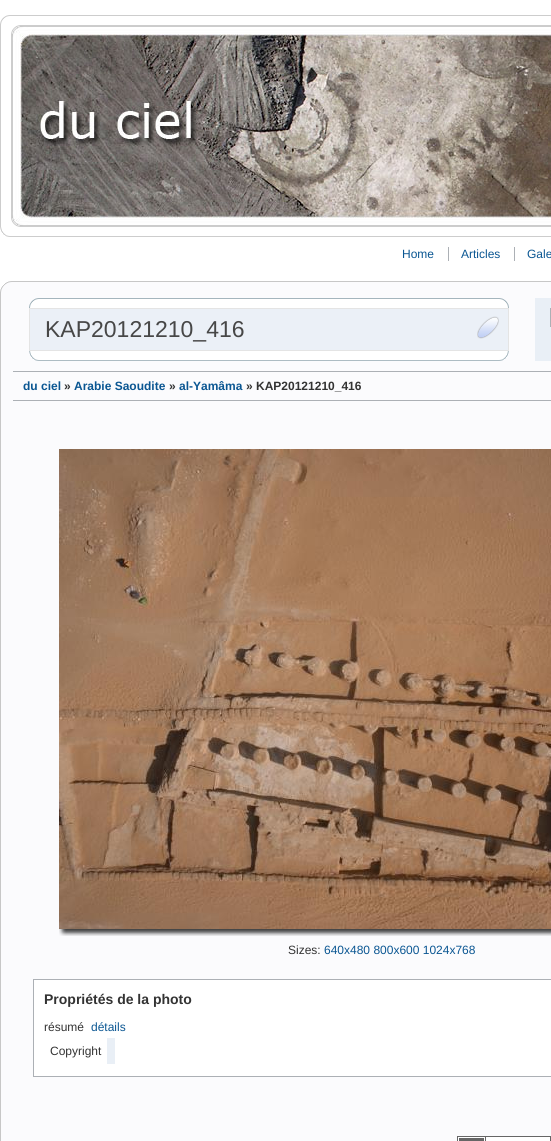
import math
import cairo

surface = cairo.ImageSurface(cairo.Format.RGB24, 551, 1141)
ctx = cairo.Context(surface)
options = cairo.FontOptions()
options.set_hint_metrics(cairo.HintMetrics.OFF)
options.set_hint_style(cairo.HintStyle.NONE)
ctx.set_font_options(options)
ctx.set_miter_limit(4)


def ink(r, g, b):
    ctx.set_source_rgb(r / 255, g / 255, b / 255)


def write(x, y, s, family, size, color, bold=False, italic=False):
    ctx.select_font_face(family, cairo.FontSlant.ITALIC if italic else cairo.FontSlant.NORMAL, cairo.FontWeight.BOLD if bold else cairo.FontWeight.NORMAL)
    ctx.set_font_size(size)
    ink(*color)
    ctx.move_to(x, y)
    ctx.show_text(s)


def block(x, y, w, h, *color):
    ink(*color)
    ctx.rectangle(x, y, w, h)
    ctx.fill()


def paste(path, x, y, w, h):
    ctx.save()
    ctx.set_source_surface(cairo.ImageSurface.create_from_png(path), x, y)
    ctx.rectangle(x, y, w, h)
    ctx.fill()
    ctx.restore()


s1 = dict(family="Liberation Sans", size=12, color=(10, 86, 146))
s2 = dict(family="Liberation Sans", size=23, color=(71, 71, 71))
s3 = dict(family="Liberation Sans", size=12, color=(10, 86, 146), bold=True)
s4 = dict(family="Liberation Sans", size=12, color=(51, 51, 51), bold=True)
s5 = dict(family="Liberation Sans", size=12, color=(51, 51, 51))
s6 = dict(family="Liberation Sans", size=14, color=(51, 51, 51), bold=True)

ink(255, 255, 255)
ctx.paint()
paste("pic1.png", 0, 15, 10, 10)
block(10, 15, 541, 1, 205, 205, 205)
block(0, 25, 1, 202, 205, 205, 205)
paste("pic2.png", 12, 26, 539, 200)
ctx.rectangle(11.5, 25.5, 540, 201)
ctx.set_line_width(1)
ctx.stroke()
paste("pic3.png", 11, 25, 9, 9)
paste("pic4.png", 11, 218, 9, 9)
paste("pic5.png", 0, 227, 10, 10)
block(10, 236, 541, 1, 205, 205, 205)
write(402, 258, "Home", **s1)
write(461, 258, "Articles", **s1)
block(448, 247, 1, 14, 172, 176, 181)
write(527, 258, "Gale", **s1)
block(514, 247, 1, 14, 172, 176, 181)
paste("pic6.png", 0, 281, 12, 12)
block(12, 282, 539, 11, 251, 251, 253)
block(12, 281, 539, 1, 199, 199, 199)
block(1, 293, 550, 848, 251, 251, 253)
block(0, 293, 1, 848, 199, 199, 199)
paste("pic7.png", 29, 298, 10, 10)
block(39, 299, 460, 9, 255, 255, 255)
block(39, 298, 460, 1, 164, 181, 189)
paste("pic8.png", 499, 298, 10, 10)
ink(235, 240, 247)
ctx.rectangle(29.5, 308.5, 479, 42)
ctx.fill_preserve()
ink(228, 228, 228)
ctx.stroke()
write(45, 337, "KAP20121210_416", **s2)
paste("pic9.png", 477, 316, 22, 23)
paste("pic10.png", 29, 351, 10, 10)
block(39, 351, 460, 9, 255, 255, 255)
block(39, 360, 460, 1, 173, 188, 195)
paste("pic11.png", 499, 351, 10, 10)
block(535, 298, 16, 63, 233, 239, 246)
ctx.rectangle(550.5, 308.5, 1, 18)
ink(172, 176, 181)
ctx.stroke()
block(13, 371, 538, 1, 172, 176, 181)
block(13, 400, 538, 1, 172, 176, 181)
write(23, 390, "du ciel", **s3)
write(64, 390, "»", **s4)
write(74, 390, "Arabie Saoudite", **s3)
write(169, 390, "»", **s4)
write(179, 390, "al-Yamâma", **s3)
write(246, 390, "» KAP20121210_416", **s4)
paste("pic12.png", 59, 449, 492, 480)
paste("pic13.png", 59, 929, 9, 7)
paste("pic14.png", 68, 929, 483, 7)
write(288, 954, "Sizes:", **s5)
write(324, 954, "640x480 800x600 1024x768", **s1)
ink(255, 255, 255)
ctx.rectangle(33.5, 979.5, 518, 97)
ctx.fill_preserve()
ink(172, 176, 181)
ctx.stroke()
write(44, 1004, "Propriétés de la photo", **s6)
write(44, 1031, "résumé", **s5)
write(91, 1031, "détails", **s1)
write(50, 1055, "Copyright", **s5)
block(107, 1038, 8, 26, 233, 239, 246)
paste("pic15.png", 457, 1136, 94, 5)
surface.write_to_png("screenshot.png")
